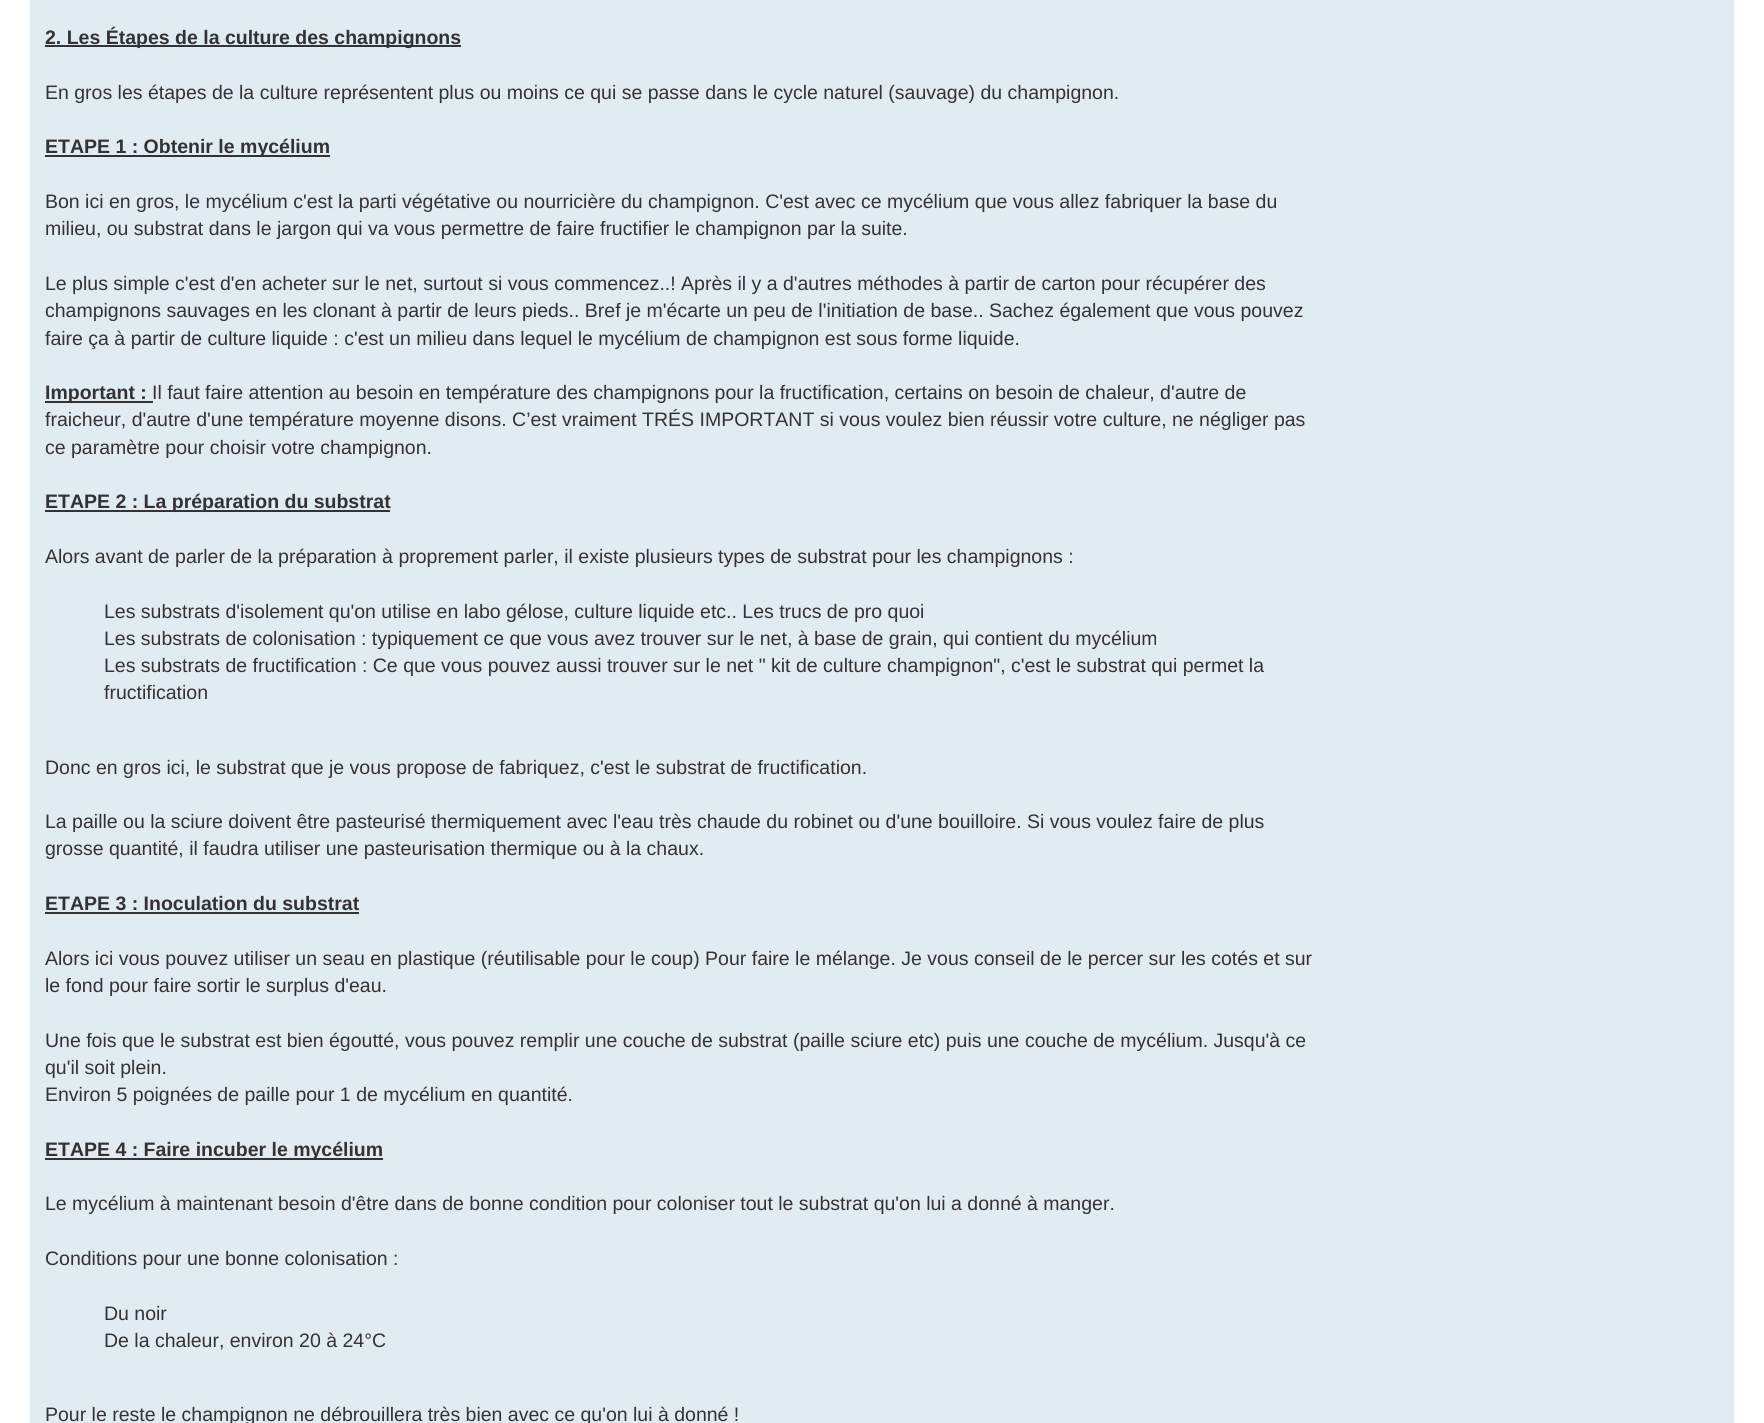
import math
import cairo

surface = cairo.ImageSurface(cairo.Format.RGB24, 1764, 1423)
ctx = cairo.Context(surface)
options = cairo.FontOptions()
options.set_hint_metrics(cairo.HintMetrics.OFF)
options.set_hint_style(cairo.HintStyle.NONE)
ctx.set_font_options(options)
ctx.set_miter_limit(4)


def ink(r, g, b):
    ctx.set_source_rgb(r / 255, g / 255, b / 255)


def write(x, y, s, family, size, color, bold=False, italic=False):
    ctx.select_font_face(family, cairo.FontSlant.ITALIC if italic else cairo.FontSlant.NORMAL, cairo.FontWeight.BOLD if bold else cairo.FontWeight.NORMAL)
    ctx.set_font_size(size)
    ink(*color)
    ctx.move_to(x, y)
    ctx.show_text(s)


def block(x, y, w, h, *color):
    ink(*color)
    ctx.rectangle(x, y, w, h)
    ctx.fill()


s1 = dict(family="Liberation Sans", size=19.5, color=(51, 51, 51), bold=True)
s2 = dict(family="Liberation Sans", size=19.5, color=(51, 51, 51))

ink(255, 255, 255)
ctx.paint()
block(30, 0, 1704, 1423, 225, 235, 242)
block(45, 45, 416, 2, 51, 51, 51)
write(45, 44, "2. Les Étapes de la culture des champignons", **s1)
write(45, 99, "En gros les étapes de la culture représentent plus ou moins ce qui se passe dans le cycle naturel (sauvage) du champignon.", **s2)
block(45, 155, 285, 2, 51, 51, 51)
write(45, 153, "ETAPE 1 : Obtenir le mycélium", **s1)
write(45, 208, "Bon ici en gros, le mycélium c'est la parti végétative ou nourricière du champignon. C'est avec ce mycélium que vous allez fabriquer la base du", **s2)
write(45, 235, "milieu, ou substrat dans le jargon qui va vous permettre de faire fructifier le champignon par la suite.", **s2)
write(45, 290, "Le plus simple c'est d'en acheter sur le net, surtout si vous commencez..! Après il y a d'autres méthodes à partir de carton pour récupérer des", **s2)
write(45, 317, "champignons sauvages en les clonant à partir de leurs pieds.. Bref je m'écarte un peu de l'initiation de base.. Sachez également que vous pouvez", **s2)
write(45, 345, "faire ça à partir de culture liquide : c'est un milieu dans lequel le mycélium de champignon est sous forme liquide.", **s2)
block(45, 401, 108, 2, 51, 51, 51)
write(45, 399, "Important :", **s1)
write(152, 399, "Il faut faire attention au besoin en température des champignons pour la fructification, certains on besoin de chaleur, d'autre de", **s2)
write(45, 426, "fraicheur, d'autre d'une température moyenne disons. C’est vraiment TRÉS IMPORTANT si vous voulez bien réussir votre culture, ne négliger pas", **s2)
write(45, 454, "ce paramètre pour choisir votre champignon.", **s2)
block(45, 510, 345, 2, 51, 51, 51)
write(45, 508, "ETAPE 2 : La préparation du substrat", **s1)
write(45, 563, "Alors avant de parler de la préparation à proprement parler, il existe plusieurs types de substrat pour les champignons :", **s2)
write(104, 618, "Les substrats d'isolement qu'on utilise en labo gélose, culture liquide etc.. Les trucs de pro quoi", **s2)
write(104, 645, "Les substrats de colonisation : typiquement ce que vous avez trouver sur le net, à base de grain, qui contient du mycélium", **s2)
write(104, 672, "Les substrats de fructification : Ce que vous pouvez aussi trouver sur le net \" kit de culture champignon\", c'est le substrat qui permet la", **s2)
write(104, 699, "fructification", **s2)
write(45, 774, "Donc en gros ici, le substrat que je vous propose de fabriquez, c'est le substrat de fructification.", **s2)
write(45, 828, "La paille ou la sciure doivent être pasteurisé thermiquement avec l'eau très chaude du robinet ou d'une bouilloire. Si vous voulez faire de plus", **s2)
write(45, 855, "grosse quantité, il faudra utiliser une pasteurisation thermique ou à la chaux.", **s2)
write(45, 910, "ETAPE 3 : Inoculation du substrat", **s1)
block(45, 912, 314, 2, 51, 51, 51)
write(45, 965, "Alors ici vous pouvez utiliser un seau en plastique (réutilisable pour le coup) Pour faire le mélange. Je vous conseil de le percer sur les cotés et sur", **s2)
write(45, 992, "le fond pour faire sortir le surplus d'eau.", **s2)
write(45, 1047, "Une fois que le substrat est bien égoutté, vous pouvez remplir une couche de substrat (paille sciure etc) puis une couche de mycélium. Jusqu'à ce", **s2)
write(45, 1074, "qu'il soit plein.", **s2)
write(45, 1101, "Environ 5 poignées de paille pour 1 de mycélium en quantité.", **s2)
block(45, 1158, 338, 2, 51, 51, 51)
write(45, 1156, "ETAPE 4 : Faire incuber le mycélium", **s1)
write(45, 1210, "Le mycélium à maintenant besoin d'être dans de bonne condition pour coloniser tout le substrat qu'on lui a donné à manger.", **s2)
write(45, 1265, "Conditions pour une bonne colonisation :", **s2)
write(104, 1320, "Du noir", **s2)
write(104, 1347, "De la chaleur, environ 20 à 24°C", **s2)
write(45, 1421, "Pour le reste le champignon ne débrouillera très bien avec ce qu'on lui à donné !", **s2)
surface.write_to_png("screenshot.png")
